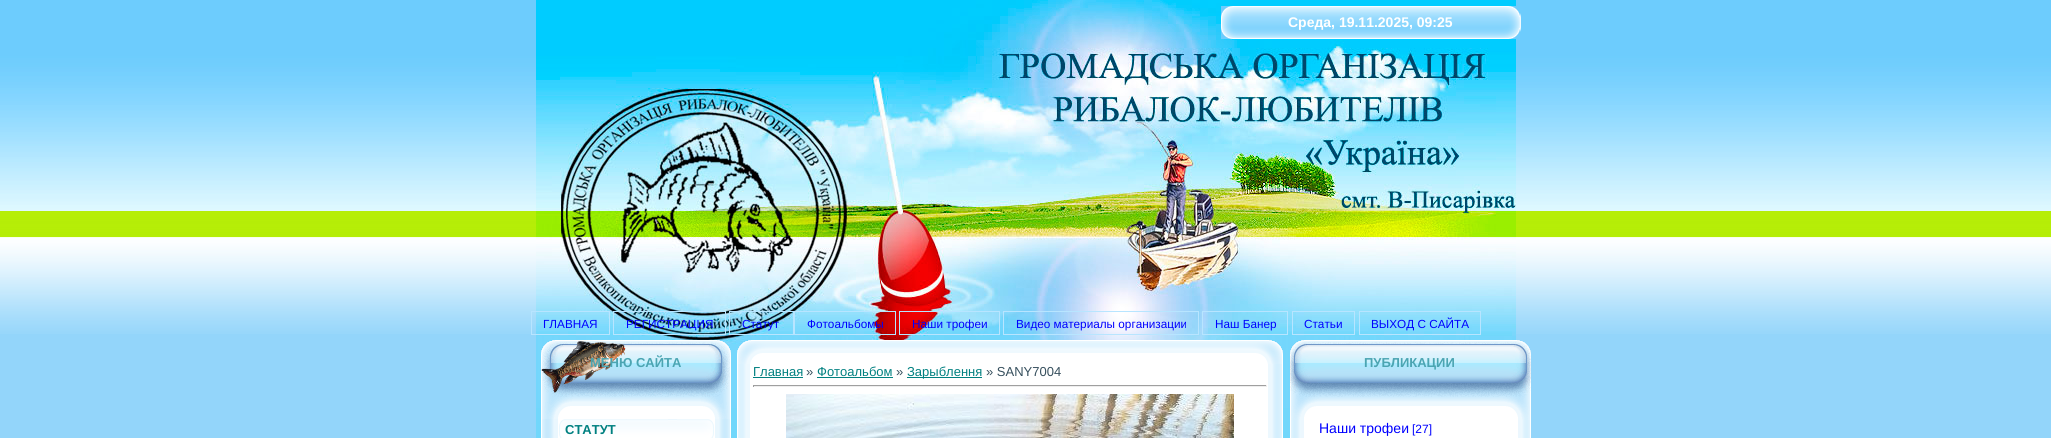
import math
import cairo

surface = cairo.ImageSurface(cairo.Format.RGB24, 2051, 438)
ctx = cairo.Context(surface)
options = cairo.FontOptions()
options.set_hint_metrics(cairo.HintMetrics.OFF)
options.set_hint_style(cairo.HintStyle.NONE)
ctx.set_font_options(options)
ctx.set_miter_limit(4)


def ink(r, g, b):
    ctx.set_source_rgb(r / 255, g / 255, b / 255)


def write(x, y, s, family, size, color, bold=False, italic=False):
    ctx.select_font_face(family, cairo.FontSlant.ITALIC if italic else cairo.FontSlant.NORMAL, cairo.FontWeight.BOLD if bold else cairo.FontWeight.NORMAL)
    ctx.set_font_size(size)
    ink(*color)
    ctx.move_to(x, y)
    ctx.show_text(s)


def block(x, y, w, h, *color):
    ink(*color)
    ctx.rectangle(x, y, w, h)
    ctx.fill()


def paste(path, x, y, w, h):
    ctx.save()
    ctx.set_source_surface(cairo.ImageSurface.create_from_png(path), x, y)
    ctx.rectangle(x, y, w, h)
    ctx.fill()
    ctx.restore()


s1 = dict(family="Liberation Sans", size=14, color=(255, 255, 255), bold=True)
s2 = dict(family="Liberation Sans", size=11.75, color=(0, 0, 255))
s3 = dict(family="Liberation Sans", size=13, color=(75, 165, 178), bold=True)
s4 = dict(family="Liberation Sans", size=13, color=(0, 128, 128), bold=True)
s5 = dict(family="Liberation Sans", size=13, color=(0, 128, 128))
s6 = dict(family="Liberation Sans", size=13, color=(54, 79, 93))
s7 = dict(family="Liberation Sans", size=14, color=(0, 0, 255))
s8 = dict(family="Liberation Sans", size=12, color=(0, 0, 255))

ink(147, 213, 250)
ctx.paint()
paste("pic1.png", 0, 0, 2051, 334)
paste("pic2.png", 536, 0, 980, 438)
paste("pic3.png", 1221, 6, 300, 33)
write(1288, 27, "Среда, 19.11.2025, 09:25", **s1)
ctx.rectangle(531.5, 311.5, 78, 23)
ink(184, 229, 255)
ctx.set_line_width(1)
ctx.stroke()
write(543, 328, "ГЛАВНАЯ", **s2)
ctx.rectangle(613.5, 311.5, 112, 23)
ink(184, 229, 255)
ctx.stroke()
write(626, 328, "РЕГИСТРАЦИЯ", **s2)
ctx.rectangle(729.5, 311.5, 64, 23)
ink(184, 229, 255)
ctx.stroke()
write(742, 328, "Статут", **s2)
ctx.rectangle(794.5, 311.5, 101, 23)
ink(184, 229, 255)
ctx.stroke()
write(807, 328, "Фотоальбомы", **s2)
ctx.rectangle(899.5, 311.5, 100, 23)
ink(184, 229, 255)
ctx.stroke()
write(912, 328, "Наши трофеи", **s2)
ctx.rectangle(1003.5, 311.5, 195, 23)
ink(184, 229, 255)
ctx.stroke()
write(1016, 328, "Видео материалы организации", **s2)
ctx.rectangle(1202.5, 311.5, 85, 23)
ink(184, 229, 255)
ctx.stroke()
write(1215, 328, "Наш Банер", **s2)
ctx.rectangle(1292.5, 311.5, 62, 23)
ink(184, 229, 255)
ctx.stroke()
write(1304, 328, "Статьи", **s2)
ctx.rectangle(1359.5, 311.5, 121, 23)
ink(184, 229, 255)
ctx.stroke()
write(1371, 328, "ВЫХОД С САЙТА", **s2)
paste("pic4.png", 541, 340, 190, 79)
write(590, 367, "МЕНЮ САЙТА", **s3)
paste("pic5.png", 541, 419, 190, 19)
paste("pic6.png", 559, 419, 155, 19)
write(565, 434, "СТАТУТ", **s4)
paste("pic7.png", 737, 340, 546, 24)
paste("pic8.png", 737, 364, 546, 74)
write(753, 376, "Главная", **s5)
block(753, 377, 50, 1, 0, 128, 128)
write(806, 376, "»", **s6)
write(817, 376, "Фотоальбом", **s5)
block(817, 377, 76, 1, 0, 128, 128)
write(896, 376, "»", **s6)
block(907, 377, 75, 1, 0, 128, 128)
write(907, 376, "Зарыблення", **s5)
write(986, 376, "» SANY7004", **s6)
block(753, 385, 514, 1, 159, 159, 159)
block(1266, 385, 1, 2, 238, 238, 238)
block(753, 386, 514, 1, 238, 238, 238)
block(753, 385, 1, 2, 159, 159, 159)
paste("pic9.png", 786, 394, 448, 44)
paste("pic10.png", 1290, 340, 241, 80)
write(1364, 367, "ПУБЛИКАЦИИ", **s3)
paste("pic11.png", 1290, 420, 241, 18)
write(1319, 433, "Наши трофеи", **s7)
write(1412, 433, "[27]", **s8)
surface.write_to_png("screenshot.png")
